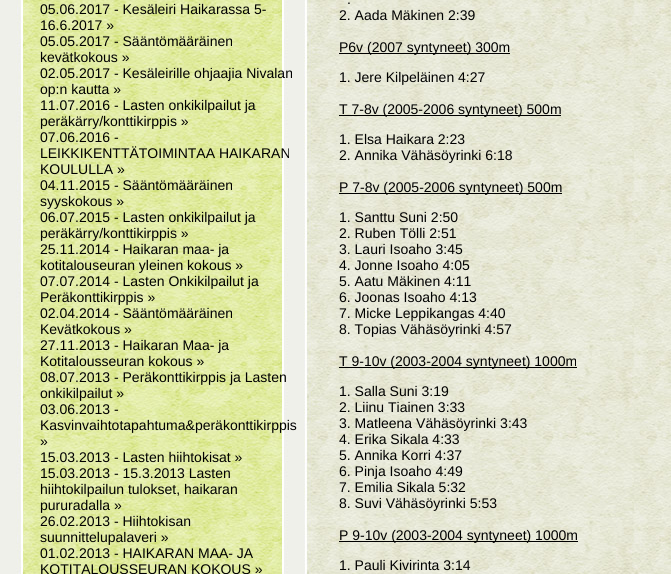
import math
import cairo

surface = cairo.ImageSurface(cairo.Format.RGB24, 671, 574)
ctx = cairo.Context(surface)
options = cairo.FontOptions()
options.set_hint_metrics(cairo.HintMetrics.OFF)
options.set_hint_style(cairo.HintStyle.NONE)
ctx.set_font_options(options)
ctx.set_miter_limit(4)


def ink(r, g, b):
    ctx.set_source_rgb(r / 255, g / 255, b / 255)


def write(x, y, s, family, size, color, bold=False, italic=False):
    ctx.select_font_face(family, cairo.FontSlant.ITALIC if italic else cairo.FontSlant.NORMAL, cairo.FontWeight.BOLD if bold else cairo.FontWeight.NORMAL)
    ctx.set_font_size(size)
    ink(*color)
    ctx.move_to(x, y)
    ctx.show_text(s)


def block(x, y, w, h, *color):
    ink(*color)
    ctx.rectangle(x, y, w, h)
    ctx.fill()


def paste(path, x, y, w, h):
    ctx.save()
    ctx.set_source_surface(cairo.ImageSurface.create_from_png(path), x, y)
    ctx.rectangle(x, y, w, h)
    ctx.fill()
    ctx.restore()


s1 = dict(family="Liberation Sans", size=14, color=(0, 0, 0))

ink(239, 240, 234)
ctx.paint()
paste("pic1.png", 16, 0, 655, 574)
write(40, 14, "05.06.2017 - Kesäleiri Haikarassa 5-", **s1)
write(40, 30, "16.6.2017 »", **s1)
write(40, 46, "05.05.2017 - Sääntömääräinen", **s1)
write(40, 62, "kevätkokous »", **s1)
write(40, 78, "02.05.2017 - Kesäleirille ohjaajia Nivalan", **s1)
write(40, 94, "op:n kautta »", **s1)
write(40, 110, "11.07.2016 - Lasten onkikilpailut ja", **s1)
write(40, 126, "peräkärry/konttikirppis »", **s1)
write(40, 142, "07.06.2016 -", **s1)
write(40, 158, "LEIKKIKENTTÄTOIMINTAA HAIKARAN", **s1)
write(40, 174, "KOULULLA »", **s1)
write(40, 190, "04.11.2015 - Sääntömääräinen", **s1)
write(40, 206, "syyskokous »", **s1)
write(40, 222, "06.07.2015 - Lasten onkikilpailut ja", **s1)
write(40, 238, "peräkärry/konttikirppis »", **s1)
write(40, 254, "25.11.2014 - Haikaran maa- ja", **s1)
write(40, 270, "kotitalouseuran yleinen kokous »", **s1)
write(40, 286, "07.07.2014 - Lasten Onkikilpailut ja", **s1)
write(40, 302, "Peräkonttikirppis »", **s1)
write(40, 318, "02.04.2014 - Sääntömääräinen", **s1)
write(40, 334, "Kevätkokous »", **s1)
write(40, 350, "27.11.2013 - Haikaran Maa- ja", **s1)
write(40, 366, "Kotitalousseuran kokous »", **s1)
write(40, 382, "08.07.2013 - Peräkonttikirppis ja Lasten", **s1)
write(40, 398, "onkikilpailut »", **s1)
write(40, 414, "03.06.2013 -", **s1)
write(40, 430, "Kasvinvaihtotapahtuma&peräkonttikirppis", **s1)
write(40, 446, "»", **s1)
write(40, 462, "15.03.2013 - Lasten hiihtokisat »", **s1)
write(40, 478, "15.03.2013 - 15.3.2013 Lasten", **s1)
write(40, 494, "hiihtokilpailun tulokset, haikaran", **s1)
write(40, 510, "pururadalla »", **s1)
write(40, 526, "26.02.2013 - Hiihtokisan", **s1)
write(40, 542, "suunnittelupalaveri »", **s1)
write(40, 558, "01.02.2013 - HAIKARAN MAA- JA", **s1)
write(40, 574, "KOTITALOUSSEURAN KOKOUS »", **s1)
write(347, 4, ".", **s1)
write(339, 20, "2. Aada Mäkinen 2:39", **s1)
block(339, 53, 171, 1, 0, 0, 0)
write(339, 52, "P6v (2007 syntyneet) 300m", **s1)
write(339, 82, "1. Jere Kilpeläinen 4:27", **s1)
block(339, 115, 222, 1, 0, 0, 0)
write(339, 114, "T 7-8v (2005-2006 syntyneet) 500m", **s1)
write(339, 144, "1. Elsa Haikara 2:23", **s1)
write(339, 160, "2. Annika Vähäsöyrinki 6:18", **s1)
block(339, 193, 223, 1, 0, 0, 0)
write(339, 192, "P 7-8v (2005-2006 syntyneet) 500m", **s1)
write(339, 222, "1. Santtu Suni 2:50", **s1)
write(339, 238, "2. Ruben Tölli 2:51", **s1)
write(339, 254, "3. Lauri Isoaho 3:45", **s1)
write(339, 270, "4. Jonne Isoaho 4:05", **s1)
write(339, 286, "5. Aatu Mäkinen 4:11", **s1)
write(339, 302, "6. Joonas Isoaho 4:13", **s1)
write(339, 318, "7. Micke Leppikangas 4:40", **s1)
write(339, 334, "8. Topias Vähäsöyrinki 4:57", **s1)
block(339, 367, 238, 1, 0, 0, 0)
write(339, 366, "T 9-10v (2003-2004 syntyneet) 1000m", **s1)
write(339, 396, "1. Salla Suni 3:19", **s1)
write(339, 412, "2. Liinu Tiainen 3:33", **s1)
write(339, 428, "3. Matleena Vähäsöyrinki 3:43", **s1)
write(339, 444, "4. Erika Sikala 4:33", **s1)
write(339, 460, "5. Annika Korri 4:37", **s1)
write(339, 476, "6. Pinja Isoaho 4:49", **s1)
write(339, 492, "7. Emilia Sikala 5:32", **s1)
write(339, 508, "8. Suvi Vähäsöyrinki 5:53", **s1)
block(339, 541, 239, 1, 0, 0, 0)
write(339, 540, "P 9-10v (2003-2004 syntyneet) 1000m", **s1)
write(339, 570, "1. Pauli Kivirinta 3:14", **s1)
surface.write_to_png("screenshot.png")
